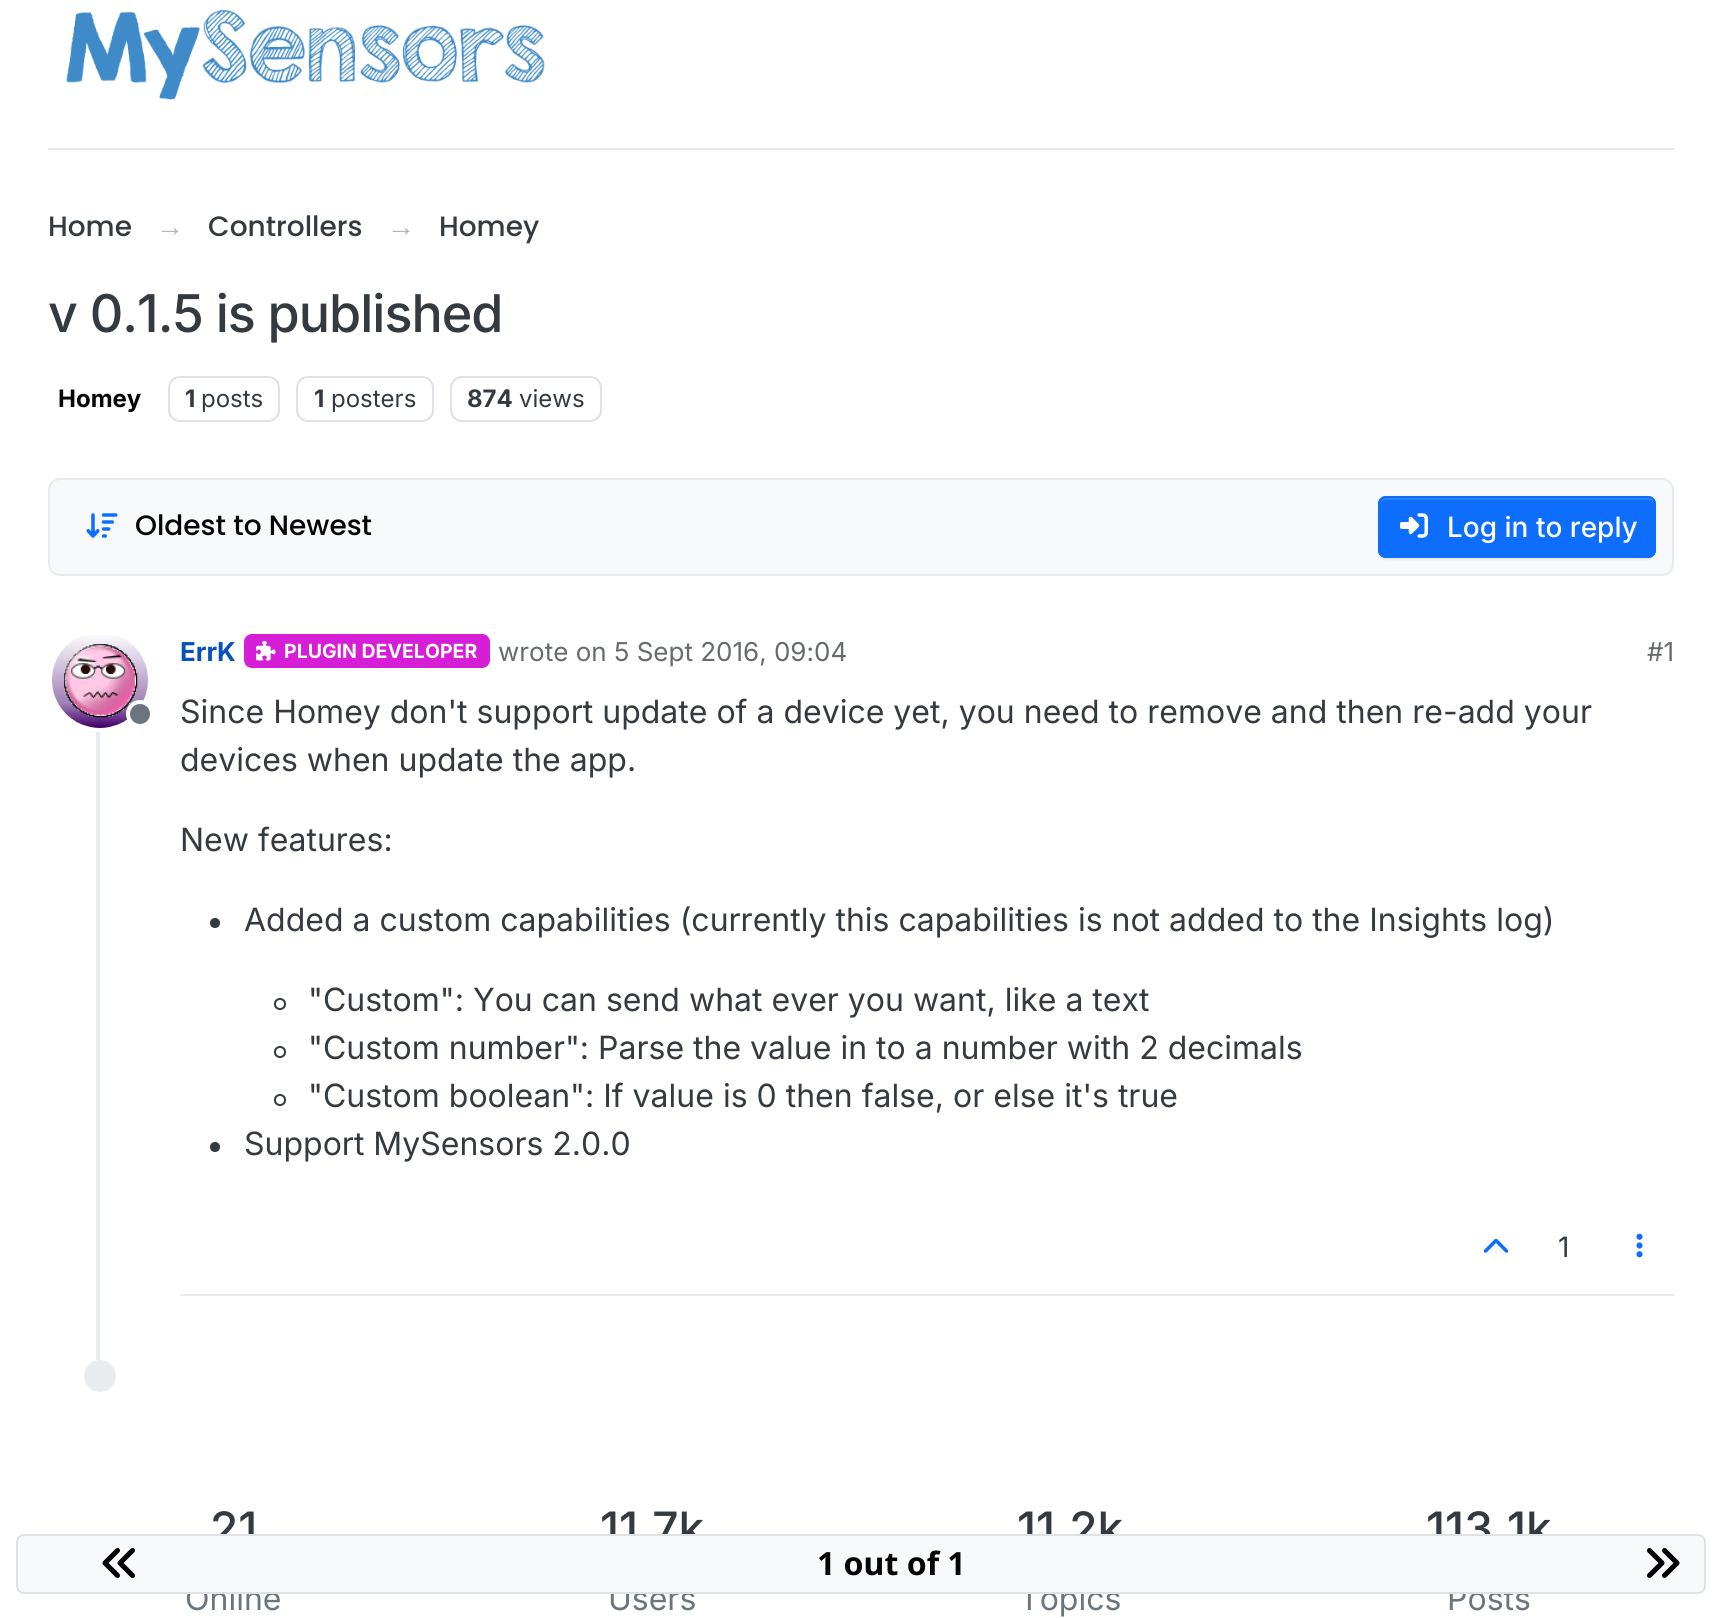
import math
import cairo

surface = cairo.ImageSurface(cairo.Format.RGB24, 1722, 1618)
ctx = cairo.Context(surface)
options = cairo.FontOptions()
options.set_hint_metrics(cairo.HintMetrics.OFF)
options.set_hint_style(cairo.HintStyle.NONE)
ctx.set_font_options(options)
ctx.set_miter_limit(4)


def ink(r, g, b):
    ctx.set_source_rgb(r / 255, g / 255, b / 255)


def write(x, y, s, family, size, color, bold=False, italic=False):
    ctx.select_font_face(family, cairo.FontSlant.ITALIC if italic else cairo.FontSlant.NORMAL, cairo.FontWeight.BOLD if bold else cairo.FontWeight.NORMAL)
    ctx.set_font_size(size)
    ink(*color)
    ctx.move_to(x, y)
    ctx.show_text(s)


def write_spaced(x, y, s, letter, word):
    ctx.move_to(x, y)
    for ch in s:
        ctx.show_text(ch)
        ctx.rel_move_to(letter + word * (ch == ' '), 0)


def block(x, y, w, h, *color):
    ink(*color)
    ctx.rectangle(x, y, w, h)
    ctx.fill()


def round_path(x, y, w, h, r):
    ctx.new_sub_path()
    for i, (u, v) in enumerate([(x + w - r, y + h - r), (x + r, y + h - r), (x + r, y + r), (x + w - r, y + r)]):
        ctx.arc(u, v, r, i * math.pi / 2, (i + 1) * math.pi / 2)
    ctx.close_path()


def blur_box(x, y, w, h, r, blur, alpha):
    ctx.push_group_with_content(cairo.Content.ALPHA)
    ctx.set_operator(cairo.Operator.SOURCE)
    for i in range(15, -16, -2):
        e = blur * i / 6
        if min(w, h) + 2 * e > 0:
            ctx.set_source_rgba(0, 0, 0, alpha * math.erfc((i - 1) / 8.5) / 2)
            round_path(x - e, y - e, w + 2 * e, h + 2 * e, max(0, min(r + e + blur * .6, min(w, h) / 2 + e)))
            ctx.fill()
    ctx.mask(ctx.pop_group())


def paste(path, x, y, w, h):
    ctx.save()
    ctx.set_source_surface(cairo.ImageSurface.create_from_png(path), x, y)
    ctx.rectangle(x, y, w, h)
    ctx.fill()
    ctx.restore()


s1 = dict(family="Poppins Medium", size=28, color=(52, 58, 64))
s2 = dict(family="Liberation Sans", size=28, color=(173, 181, 189))
s3 = dict(family="Inter", size=24, color=(5, 5, 5), bold=True)
s4 = dict(family="Inter", size=24, color=(52, 58, 64), bold=True)
s5 = dict(family="Inter", size=24, color=(52, 58, 64))
s6 = dict(family="Poppins Medium", size=28, color=(5, 5, 5))
s7 = dict(family="Inter Medium", size=28, color=(255, 255, 255))
s8 = dict(family="Inter", size=26, color=(9, 81, 190), bold=True)
s9 = dict(family="Inter", size=19.5, color=(255, 255, 255), bold=True)
s10 = dict(family="Inter", size=26, color=(103, 107, 112))
s11 = dict(family="Inter", size=32, color=(52, 58, 64))
s12 = dict(family="Inter", size=28, color=(52, 58, 64))
s13 = dict(family="Inter Medium", size=46, color=(52, 58, 64))
s14 = dict(family="Inter", size=32, color=(108, 117, 125))
s15 = dict(family="Noto Sans", size=32, color=(5, 5, 5), bold=True)

ink(255, 255, 255)
ctx.paint()
block(48, 148, 1626, 2, 233, 236, 239)
paste("pic1.png", 66, 10, 479, 90)
write(48, 236, "Home", **s1)
write(156, 236, "→", **s2)
write(208, 236, "Controllers", **s1)
write(387, 236, "→", **s2)
write(439, 236, "Homey", **s1)
ctx.select_font_face("Inter Medium")
ctx.set_font_size(52)
write_spaced(48, 332, "v 0.1.5 is published", -1, 0)
write(58, 407, "Homey", **s3)
round_path(169, 377, 110, 44, 11)
ink(222, 226, 230)
ctx.stroke()
write(185, 407, "1", **s4)
write(201, 407, "posts", **s5)
round_path(297, 377, 136, 44, 11)
ink(222, 226, 230)
ctx.stroke()
write(314, 407, "1", **s4)
write(331, 407, "posters", **s5)
round_path(451, 377, 150, 44, 11)
ink(222, 226, 230)
ctx.stroke()
write(467, 407, "874", **s4)
write(519, 407, "views", **s5)
ink(248, 249, 250)
round_path(49, 479, 1624, 96, 11)
ctx.fill_preserve()
ink(233, 236, 239)
ctx.stroke()
paste("pic2.png", 86, 513, 32, 25)
write(135, 535, "Oldest to Newest", **s6)
ink(0, 0, 0)
blur_box(1378, 498, 278, 62, 8, 1, 0.07)
ink(13, 110, 253)
round_path(1378, 496, 278, 62, 8)
ctx.fill()
ink(49, 132, 253)
ctx.new_path()
ctx.move_to(1386, 500)
ctx.line_to(1648, 500)
ctx.curve_to(1651, 500, 1654, 503, 1654, 506)
ctx.curve_to(1654, 503, 1653, 499, 1649, 498)
ctx.line_to(1385, 498)
ctx.curve_to(1381, 499, 1380, 503, 1380, 506)
ctx.curve_to(1380, 503, 1383, 500, 1386, 500)
ctx.close_path()
ctx.fill()
round_path(1379, 497, 276, 60, 7)
ink(13, 110, 253)
ctx.stroke()
paste("pic3.png", 1400, 513, 28, 25)
write(1447, 537, "Log in to reply", **s7)
block(96, 632, 4, 728, 233, 236, 239)
ink(255, 255, 255)
ctx.new_path()
ctx.arc(100, 680, 50, 0, 2 * math.pi)
ctx.fill_preserve()
ctx.set_line_width(4)
ctx.stroke()
paste("pic4.png", 52, 635, 96, 93)
ink(108, 117, 125)
ctx.arc(140, 714, 12, 0, 2 * math.pi)
ctx.fill_preserve()
ink(255, 255, 255)
ctx.stroke()
write(180, 661, "ErrK", **s8)
ink(214, 30, 214)
round_path(244, 634, 246, 34, 8)
ctx.fill()
paste("pic5.png", 256, 640, 20, 21)
write(284, 658, "PLUGIN DEVELOPER", **s9)
write(498, 661, "wrote on 5 Sept 2016, 09:04", **s10)
write(1647, 661, "#1", **s10)
write(180, 723, "Since Homey don't support update of a device yet, you need to remove and then re-add your", **s11)
write(180, 771, "devices when update the app.", **s11)
write(180, 851, "New features:", **s11)
ctx.new_path()
ctx.arc(215, 923, 5, 0, 2 * math.pi)
ctx.fill()
write(244, 931, "Added a custom capabilities (currently this capabilities is not added to the Insights log)", **s11)
ctx.new_path()
ctx.arc(280, 1004, 5, 0, 2 * math.pi)
ctx.set_line_width(2)
ctx.stroke()
write(308, 1011, "\"Custom\": You can send what ever you want, like a text", **s11)
ctx.new_path()
ctx.arc(280, 1052, 5, 0, 2 * math.pi)
ctx.stroke()
write(308, 1059, "\"Custom number\": Parse the value in to a number with 2 decimals", **s11)
ctx.new_path()
ctx.arc(280, 1100, 5, 0, 2 * math.pi)
ctx.stroke()
write(308, 1107, "\"Custom boolean\": If value is 0 then false, or else it's true", **s11)
ctx.new_path()
ctx.arc(215, 1147, 5, 0, 2 * math.pi)
ctx.fill()
write(244, 1155, "Support MySensors 2.0.0", **s11)
block(180, 1294, 1494, 2, 233, 236, 239)
paste("pic6.png", 1483, 1238, 26, 15)
write(1558, 1257, "1", **s12)
paste("pic7.png", 1636, 1233, 7, 25)
ink(233, 236, 239)
ctx.arc(100, 1376, 16, 0, 2 * math.pi)
ctx.fill()
write(210, 1545, "21", **s13)
write(185, 1610, "Online", **s14)
write(600, 1545, "11.7k", **s13)
write(608, 1610, "Users", **s14)
write(1017, 1545, "11.2k", **s13)
write(1019, 1610, "Topics", **s14)
write(1426, 1545, "113.1k", **s13)
write(1447, 1610, "Posts", **s14)
ink(248, 249, 250)
round_path(17, 1535, 1688, 58, 7)
ctx.fill_preserve()
ink(222, 226, 230)
ctx.stroke()
paste("pic8.png", 102, 1548, 33, 30)
write(817, 1575, "1 out of 1", **s15)
paste("pic9.png", 1647, 1548, 33, 30)
surface.write_to_png("screenshot.png")
